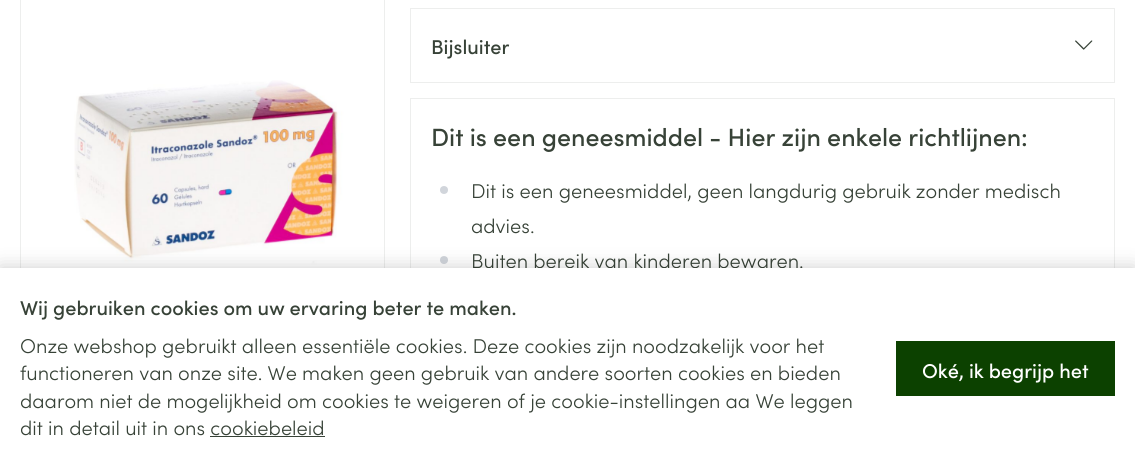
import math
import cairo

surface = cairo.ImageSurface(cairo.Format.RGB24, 1135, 469)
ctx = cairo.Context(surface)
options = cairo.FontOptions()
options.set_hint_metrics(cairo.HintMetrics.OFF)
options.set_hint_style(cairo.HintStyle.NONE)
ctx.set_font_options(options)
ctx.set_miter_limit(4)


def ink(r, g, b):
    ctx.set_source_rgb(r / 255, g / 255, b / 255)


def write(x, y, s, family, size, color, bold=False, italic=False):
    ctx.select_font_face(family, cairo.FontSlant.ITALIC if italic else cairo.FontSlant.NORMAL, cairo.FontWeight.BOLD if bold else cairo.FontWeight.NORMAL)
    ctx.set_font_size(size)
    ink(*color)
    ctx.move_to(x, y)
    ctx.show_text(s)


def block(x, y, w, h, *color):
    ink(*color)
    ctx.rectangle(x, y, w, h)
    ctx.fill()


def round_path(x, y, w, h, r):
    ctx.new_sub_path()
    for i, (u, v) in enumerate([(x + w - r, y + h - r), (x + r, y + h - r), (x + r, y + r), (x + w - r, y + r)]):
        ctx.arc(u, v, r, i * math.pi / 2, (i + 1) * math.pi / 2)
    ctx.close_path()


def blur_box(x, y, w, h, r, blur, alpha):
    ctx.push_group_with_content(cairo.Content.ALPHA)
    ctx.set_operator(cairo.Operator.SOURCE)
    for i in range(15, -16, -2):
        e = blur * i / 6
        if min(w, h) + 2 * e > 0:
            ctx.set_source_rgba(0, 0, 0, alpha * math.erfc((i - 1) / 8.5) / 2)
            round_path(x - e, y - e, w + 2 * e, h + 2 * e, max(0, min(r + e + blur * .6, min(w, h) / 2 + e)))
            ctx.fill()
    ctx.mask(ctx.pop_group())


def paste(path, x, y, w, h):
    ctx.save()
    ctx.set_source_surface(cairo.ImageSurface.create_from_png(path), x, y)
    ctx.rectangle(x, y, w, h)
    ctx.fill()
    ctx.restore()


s1 = dict(family="Sofia Medium", size=20, color=(55, 66, 55))
s2 = dict(family="Sofia Medium", size=25, color=(55, 66, 55))
s3 = dict(family="Sofia Light", size=20, color=(55, 66, 55))
s4 = dict(family="Sofia Medium", size=20, color=(255, 255, 255))

ink(255, 255, 255)
ctx.paint()
ctx.rectangle(20.5, -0.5, 364, 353)
ink(237, 238, 237)
ctx.set_line_width(1)
ctx.stroke()
paste("pic1.png", 74, 80, 298, 188)
ctx.rectangle(410.5, 8.5, 704, 74)
ctx.stroke()
write(431, 54, "Bijsluiter", **s1)
paste("pic2.png", 1075, 40, 18, 10)
ctx.rectangle(410.5, 98.5, 704, 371)
ink(237, 238, 237)
ctx.stroke()
write(431, 146, "Dit is een geneesmiddel - Hier zijn enkele richtlijnen:", **s2)
ink(209, 213, 219)
ctx.new_path()
ctx.arc(444, 190, 4, 0, 2 * math.pi)
ctx.fill()
write(471, 198, "Dit is een geneesmiddel, geen langdurig gebruik zonder medisch", **s3)
write(471, 233, "advies.", **s3)
ink(209, 213, 219)
ctx.new_path()
ctx.arc(444, 260, 4, 0, 2 * math.pi)
ctx.fill()
write(471, 268, "Buiten bereik van kinderen bewaren.", **s3)
ink(0, 0, 0)
blur_box(0, 268, 1135, 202, 0, 9.5, 0.2)
block(0, 268, 1135, 201, 255, 255, 255)
write(20, 315, "Wij gebruiken cookies om uw ervaring beter te maken.", **s1)
write(20, 353, "Onze webshop gebruikt alleen essentiële cookies. Deze cookies zijn noodzakelijk voor het", **s3)
write(20, 380, "functioneren van onze site. We maken geen gebruik van andere soorten cookies en bieden", **s3)
write(20, 408, "daarom niet de mogelijkheid om cookies te weigeren of je cookie-instellingen aa We leggen", **s3)
write(20, 435, "dit in detail uit in ons cookiebeleid", **s3)
block(210, 436, 115, 1, 55, 66, 55)
block(896, 341, 219, 55, 12, 65, 0)
write(922, 378, "Oké, ik begrijp het", **s4)
surface.write_to_png("screenshot.png")
